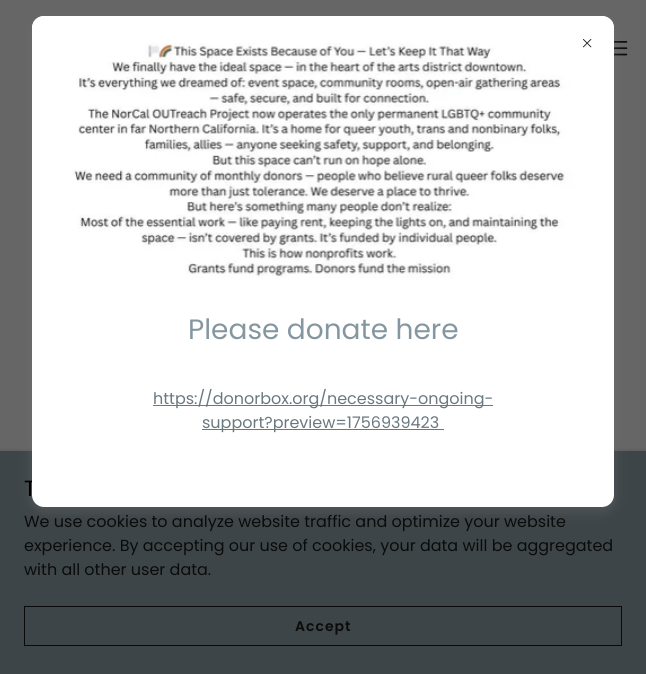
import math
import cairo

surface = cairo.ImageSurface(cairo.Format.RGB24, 646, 674)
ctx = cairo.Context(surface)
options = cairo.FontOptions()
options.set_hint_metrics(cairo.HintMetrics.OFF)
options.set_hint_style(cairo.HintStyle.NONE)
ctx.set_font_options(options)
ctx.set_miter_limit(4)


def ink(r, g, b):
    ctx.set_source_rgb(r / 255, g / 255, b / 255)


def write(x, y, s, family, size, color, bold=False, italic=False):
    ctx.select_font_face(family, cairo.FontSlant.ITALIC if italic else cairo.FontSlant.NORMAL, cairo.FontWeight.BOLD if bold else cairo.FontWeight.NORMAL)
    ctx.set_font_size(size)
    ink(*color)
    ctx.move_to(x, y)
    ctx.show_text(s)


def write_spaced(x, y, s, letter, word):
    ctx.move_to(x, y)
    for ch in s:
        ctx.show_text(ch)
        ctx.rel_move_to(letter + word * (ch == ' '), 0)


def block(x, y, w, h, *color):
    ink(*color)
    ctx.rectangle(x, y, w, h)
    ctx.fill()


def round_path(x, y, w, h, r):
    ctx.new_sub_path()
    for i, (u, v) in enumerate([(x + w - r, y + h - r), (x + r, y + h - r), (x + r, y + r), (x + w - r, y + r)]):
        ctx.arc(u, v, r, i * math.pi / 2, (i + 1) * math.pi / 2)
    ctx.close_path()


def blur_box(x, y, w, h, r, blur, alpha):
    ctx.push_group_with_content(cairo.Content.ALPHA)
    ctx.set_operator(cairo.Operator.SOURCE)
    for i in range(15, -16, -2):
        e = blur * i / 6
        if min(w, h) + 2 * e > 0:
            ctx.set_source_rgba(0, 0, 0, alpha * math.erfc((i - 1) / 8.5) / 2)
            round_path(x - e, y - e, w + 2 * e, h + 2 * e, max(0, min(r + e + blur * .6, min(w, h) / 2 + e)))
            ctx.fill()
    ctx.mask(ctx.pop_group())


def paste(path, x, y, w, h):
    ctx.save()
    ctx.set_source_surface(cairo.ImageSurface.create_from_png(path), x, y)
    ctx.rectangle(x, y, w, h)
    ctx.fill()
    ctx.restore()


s1 = dict(family="Poppins", size=22, color=(0, 0, 0))
s2 = dict(family="Poppins", size=28, color=(132, 151, 161))
s3 = dict(family="Poppins", size=16, color=(106, 121, 127))
s4 = dict(family="Poppins", size=16, color=(10, 11, 11))

ink(102, 102, 102)
ctx.paint()
paste("pic1.png", 614, 41, 14, 15)
ink(0, 0, 0)
blur_box(0, 453, 646, 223, 0, 3, 0.3)
block(0, 451, 646, 223, 62, 69, 72)
ink(117, 117, 117)
blur_box(32, 20, 582, 491, 12, 6, 0.4)
write(24, 496, "T", **s1)
ink(255, 255, 255)
round_path(32, 16, 582, 491, 12)
ctx.fill()
paste("pic3.png", 32, 16, 582, 262)
paste("pic2.png", 583, 39, 9, 9)
write(188, 339, "Please donate here", **s2)
block(153, 405, 340, 1, 106, 121, 127)
write(153, 404, "https://donorbox.org/necessary-ongoing-", **s3)
block(202, 429, 242, 1, 106, 121, 127)
write(202, 428, "support?preview=1756939423", **s3)
write(24, 527, "We use cookies to analyze website traffic and optimize your website", **s4)
write(24, 551, "experience. By accepting our use of cookies, your data will be aggregated", **s4)
write(24, 575, "with all other user data.", **s4)
ctx.rectangle(24.5, 606.5, 597, 39)
ink(9, 9, 9)
ctx.set_line_width(1)
ctx.stroke()
ctx.select_font_face("Poppins SemiBold")
ctx.set_font_size(14)
ink(10, 11, 11)
write_spaced(295, 631, "Accept", 1, 0)
surface.write_to_png("screenshot.png")
